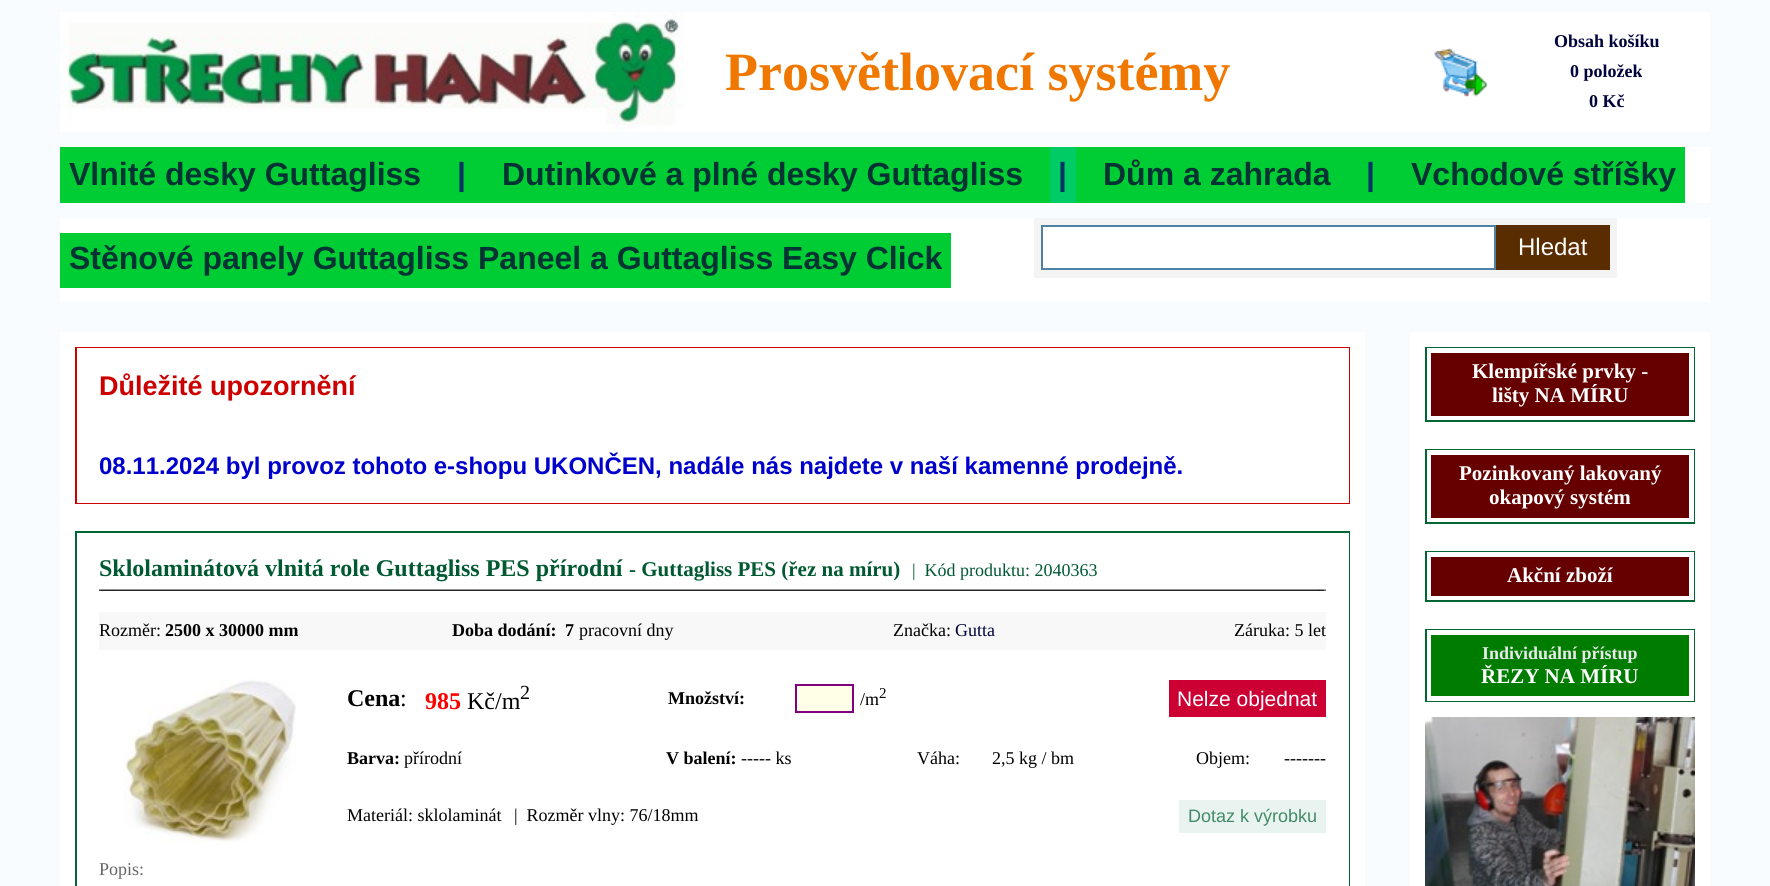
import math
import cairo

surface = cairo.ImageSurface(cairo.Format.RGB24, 1770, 886)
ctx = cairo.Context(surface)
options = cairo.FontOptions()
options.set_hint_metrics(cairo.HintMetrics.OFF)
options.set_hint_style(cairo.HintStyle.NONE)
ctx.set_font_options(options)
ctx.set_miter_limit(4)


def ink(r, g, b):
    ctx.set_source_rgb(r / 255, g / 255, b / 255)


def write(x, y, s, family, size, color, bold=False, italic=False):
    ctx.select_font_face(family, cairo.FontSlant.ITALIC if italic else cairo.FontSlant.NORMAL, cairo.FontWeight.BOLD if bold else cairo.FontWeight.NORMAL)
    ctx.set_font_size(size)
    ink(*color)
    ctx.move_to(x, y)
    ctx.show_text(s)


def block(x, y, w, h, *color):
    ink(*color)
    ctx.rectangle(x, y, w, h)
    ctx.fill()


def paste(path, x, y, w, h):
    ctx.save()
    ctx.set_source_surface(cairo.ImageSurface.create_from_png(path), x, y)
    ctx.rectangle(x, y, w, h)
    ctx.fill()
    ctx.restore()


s1 = dict(family="Liberation Serif", size=54, color=(240, 120, 0), bold=True)
s2 = dict(family="Liberation Serif", size=18, color=(0, 2, 59), bold=True)
s3 = dict(family="Liberation Sans", size=32, color=(0, 51, 51), bold=True)
s4 = dict(family="Liberation Sans", size=32, color=(0, 51, 102), bold=True)
s5 = dict(family="Liberation Sans", size=24, color=(255, 255, 255))
s6 = dict(family="Liberation Sans", size=27, color=(204, 0, 0), bold=True)
s7 = dict(family="Liberation Sans", size=24, color=(0, 0, 204), bold=True)
s8 = dict(family="Liberation Serif", size=24, color=(0, 89, 49), bold=True)
s9 = dict(family="Liberation Serif", size=21, color=(0, 89, 49), bold=True)
s10 = dict(family="Liberation Serif", size=18, color=(0, 89, 49))
s11 = dict(family="Liberation Serif", size=18, color=(0, 0, 0))
s12 = dict(family="Liberation Serif", size=18, color=(0, 0, 0), bold=True)
s13 = dict(family="Liberation Serif", size=18, color=(0, 2, 59))
s14 = dict(family="Liberation Serif", size=24, color=(0, 0, 0), bold=True)
s15 = dict(family="Liberation Serif", size=24, color=(0, 0, 0))
s16 = dict(family="Liberation Serif", size=24, color=(255, 0, 0), bold=True)
s17 = dict(family="Liberation Serif", size=20, color=(0, 0, 0))
s18 = dict(family="Liberation Serif", size=15, color=(0, 0, 0))
s19 = dict(family="Liberation Sans", size=21, color=(255, 255, 255))
s20 = dict(family="Liberation Sans", size=18, color=(66, 138, 104))
s21 = dict(family="Liberation Serif", size=18, color=(102, 102, 102))
s22 = dict(family="Liberation Serif", size=21, color=(255, 255, 255), bold=True)
s23 = dict(family="Liberation Serif", size=18, color=(234, 234, 234), bold=True)

ink(249, 252, 254)
ctx.paint()
block(684, 12, 1026, 120, 255, 255, 255)
paste("pic1.png", 60, 12, 624, 120)
write(725, 90, "Prosvětlovací systémy", **s1)
paste("pic2.png", 1434, 47, 55, 50)
write(1554, 47, "Obsah košíku", **s2)
write(1570, 77, "0 položek", **s2)
write(1589, 107, "0 Kč", **s2)
block(1685, 147, 25, 56, 255, 255, 255)
block(60, 147, 990, 56, 0, 204, 51)
write(69, 185, "Vlnité desky Guttagliss", **s3)
write(457, 185, "|", **s4)
write(502, 185, "Dutinkové a plné desky Guttagliss", **s3)
block(1050, 147, 26, 56, 0, 204, 102)
write(1058, 185, "|", **s4)
block(1076, 147, 609, 56, 0, 204, 51)
write(1103, 185, "Dům a zahrada", **s3)
write(1366, 185, "|", **s4)
write(1411, 185, "Vchodové stříšky", **s3)
block(60, 218, 1650, 84, 255, 255, 255)
block(60, 233, 891, 55, 0, 204, 51)
write(69, 269, "Stěnové panely Guttagliss Paneel a Guttagliss Easy Click", **s3)
block(1034, 218, 583, 60, 244, 244, 244)
ink(255, 255, 255)
ctx.rectangle(1042, 226, 453, 43)
ctx.fill_preserve()
ink(77, 130, 164)
ctx.stroke()
block(1496, 225, 114, 45, 89, 45, 0)
write(1518, 255, "Hledat", **s5)
block(60, 332, 1305, 554, 255, 255, 255)
block(75, 347, 1275, 157, 204, 0, 0)
block(77, 348, 1272, 155, 255, 255, 255)
write(99, 395, "Důležité upozornění", **s6)
write(99, 474, "08.11.2024 byl provoz tohoto e-shopu UKONČEN, nadále nás najdete v naší kamenné prodejně.", **s7)
block(75, 531, 1275, 355, 0, 102, 51)
block(77, 533, 1272, 353, 255, 255, 255)
write(99, 576, "Sklolaminátová vlnitá role Guttagliss PES přírodní", **s8)
write(629, 576, "- Guttagliss PES (řez na míru)", **s9)
write(912, 576, "|  Kód produktu: 2040363", **s10)
paste("pic3.png", 99, 589, 1227, 2)
block(99, 612, 1227, 38, 248, 248, 248)
write(99, 636, "Rozměr:", **s11)
write(165, 636, "2500 x 30000 mm", **s12)
write(452, 636, "Doba dodání:", **s12)
write(565, 636, "7", **s12)
write(579, 636, "pracovní dny", **s11)
write(893, 636, "Značka:", **s11)
write(955, 636, "Gutta", **s13)
write(1234, 636, "Záruka: 5 let", **s11)
paste("pic4.png", 123, 679, 173, 164)
write(347, 706, "Cena", **s14)
write(400, 706, ":", **s15)
write(425, 709, "985", **s16)
write(467, 709, "Kč/m", **s15)
write(520, 699, "2", **s17)
write(668, 704, "Množství:", **s12)
ink(255, 255, 232)
ctx.rectangle(796, 685, 57, 27)
ctx.fill_preserve()
ink(128, 0, 128)
ctx.stroke()
write(860, 705, "/m", **s11)
write(879, 698, "2", **s18)
block(1169, 680, 157, 37, 204, 0, 51)
write(1177, 706, "Nelze objednat", **s19)
write(347, 764, "Barva:", **s12)
write(404, 764, "přírodní", **s11)
write(666, 764, "V balení:", **s12)
write(741, 764, "----- ks", **s11)
write(917, 764, "Váha:", **s11)
write(992, 764, "2,5 kg / bm", **s11)
write(1196, 764, "Objem:", **s11)
write(1284, 764, "-------", **s11)
write(347, 821, "Materiál: sklolaminát", **s11)
write(514, 821, "|  Rozměr vlny: 76/18mm", **s11)
block(1179, 800, 147, 33, 233, 243, 239)
write(1188, 822, "Dotaz k výrobku", **s20)
write(99, 875, "Popis:", **s21)
block(1410, 332, 300, 554, 255, 255, 255)
block(1425, 347, 270, 75, 0, 102, 51)
block(1427, 348, 267, 72, 255, 255, 255)
block(1431, 353, 258, 63, 102, 0, 0)
write(1472, 378, "Klempířské prvky -", **s22)
write(1492, 402, "lišty NA MÍRU", **s22)
block(1425, 449, 270, 75, 0, 102, 51)
block(1427, 450, 267, 72, 255, 255, 255)
block(1431, 455, 258, 63, 102, 0, 0)
write(1459, 480, "Pozinkovaný lakovaný", **s22)
write(1489, 504, "okapový systém", **s22)
block(1425, 551, 270, 51, 0, 102, 51)
block(1427, 552, 267, 48, 255, 255, 255)
block(1431, 557, 258, 39, 102, 0, 0)
write(1507, 582, "Akční zboží", **s22)
block(1425, 629, 270, 73, 0, 102, 51)
block(1427, 630, 267, 71, 255, 255, 255)
block(1431, 635, 258, 61, 0, 125, 0)
write(1482, 659, "Individuální přístup", **s23)
write(1481, 683, "ŘEZY NA MÍRU", **s22)
paste("pic5.png", 1425, 717, 270, 169)
surface.write_to_png("screenshot.png")
